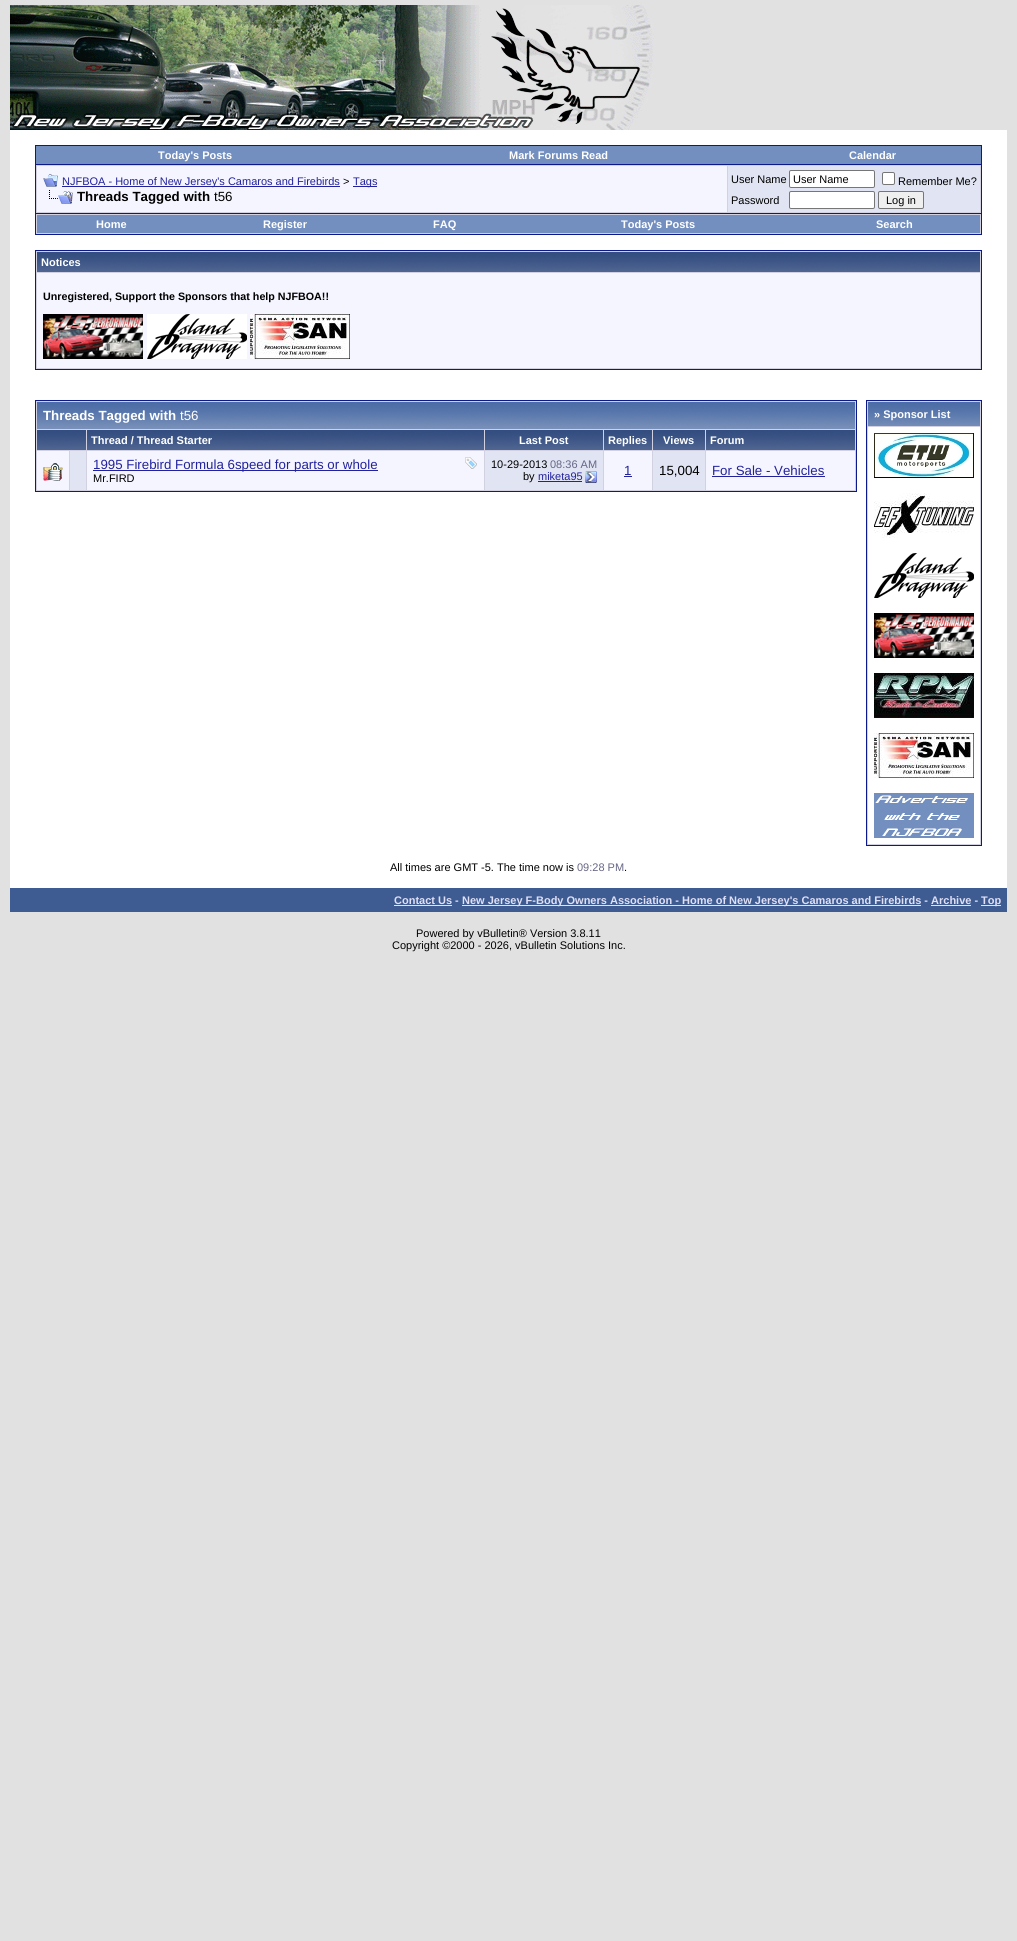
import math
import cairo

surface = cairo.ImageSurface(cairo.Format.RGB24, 1017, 1941)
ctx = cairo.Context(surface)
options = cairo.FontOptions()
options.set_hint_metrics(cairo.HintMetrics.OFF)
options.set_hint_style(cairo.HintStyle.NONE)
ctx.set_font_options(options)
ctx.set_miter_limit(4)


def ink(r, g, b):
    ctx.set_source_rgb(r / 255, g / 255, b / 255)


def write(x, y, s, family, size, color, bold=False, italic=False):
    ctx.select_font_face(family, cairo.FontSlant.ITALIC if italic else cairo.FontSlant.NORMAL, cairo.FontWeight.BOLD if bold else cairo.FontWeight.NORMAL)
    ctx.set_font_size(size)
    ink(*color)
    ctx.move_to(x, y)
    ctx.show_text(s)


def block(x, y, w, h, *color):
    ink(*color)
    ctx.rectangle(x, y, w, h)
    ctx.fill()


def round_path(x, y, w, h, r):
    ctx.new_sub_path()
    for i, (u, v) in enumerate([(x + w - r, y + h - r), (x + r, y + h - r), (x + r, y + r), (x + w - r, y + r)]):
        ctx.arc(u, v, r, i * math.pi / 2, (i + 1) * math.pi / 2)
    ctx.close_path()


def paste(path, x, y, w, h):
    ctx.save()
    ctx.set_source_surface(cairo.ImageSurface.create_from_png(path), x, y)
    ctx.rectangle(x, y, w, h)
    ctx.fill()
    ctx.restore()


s1 = dict(family="Liberation Sans", size=11, color=(255, 255, 255), bold=True)
s2 = dict(family="Liberation Sans", size=11, color=(34, 34, 156))
s3 = dict(family="Liberation Sans", size=11, color=(0, 0, 0))
s4 = dict(family="Liberation Sans", size=13.3, color=(0, 0, 0), bold=True)
s5 = dict(family="Liberation Sans", size=13.3, color=(0, 0, 0))
s6 = dict(family="Liberation Sans", size=10.7, color=(0, 0, 0), bold=True)
s7 = dict(family="Liberation Sans", size=13.3, color=(255, 255, 255), bold=True)
s8 = dict(family="Liberation Sans", size=13.3, color=(255, 255, 255))
s9 = dict(family="Liberation Sans", size=13.3, color=(34, 34, 156))
s10 = dict(family="Liberation Sans", size=11, color=(102, 102, 134))
s11 = dict(family="Liberation Sans", size=11, color=(224, 224, 246), bold=True)

ink(225, 225, 226)
ctx.paint()
paste("pic1.png", 10, 5, 644, 125)
block(10, 130, 997, 758, 255, 255, 255)
block(35, 145, 947, 1, 11, 25, 140)
block(981, 145, 1, 19, 11, 25, 140)
block(35, 145, 1, 19, 11, 25, 140)
block(36, 146, 945, 18, 115, 143, 191)
write(158, 159, "Today's Posts", **s1)
write(509, 159, "Mark Forums Read", **s1)
write(849, 159, "Calendar", **s1)
ink(209, 209, 225)
ctx.rectangle(35.5, 164.5, 946, 49)
ctx.fill_preserve()
ink(11, 25, 140)
ctx.set_line_width(1)
ctx.stroke()
block(37, 166, 690, 46, 245, 245, 255)
paste("pic2.png", 43, 174, 15, 13)
block(62, 186, 278, 1, 34, 34, 156)
write(62, 185, "NJFBOA - Home of New Jersey's Camaros and Firebirds", **s2)
write(343, 185, ">", **s3)
block(353, 186, 24, 1, 34, 34, 156)
write(353, 185, "Tags", **s2)
paste("pic3.png", 49, 190, 24, 14)
write(77, 201, "Threads Tagged with", **s4)
write(214, 201, "t56", **s5)
block(728, 166, 252, 46, 225, 228, 242)
write(731, 183, "User Name", **s3)
ink(255, 255, 255)
round_path(789.5, 170.5, 85, 17, 1.5)
ctx.fill_preserve()
ink(118, 118, 118)
ctx.stroke()
write(793, 183, "User Name", **s3)
ink(255, 255, 255)
round_path(882.5, 172.5, 12, 12, 1.5)
ctx.fill_preserve()
ink(118, 118, 118)
ctx.stroke()
write(898, 185, "Remember Me?", **s3)
write(731, 204, "Password", **s3)
ink(255, 255, 255)
round_path(789.5, 191.5, 85, 17, 1.5)
ctx.fill_preserve()
ink(118, 118, 118)
ctx.stroke()
ink(239, 239, 239)
round_path(878.5, 191.5, 45, 17, 1.5)
ctx.fill_preserve()
ink(118, 118, 118)
ctx.stroke()
write(886, 204, "Log in", **s3)
block(36, 214, 945, 20, 209, 209, 225)
block(981, 214, 1, 21, 11, 25, 140)
block(35, 234, 947, 1, 11, 25, 140)
block(35, 214, 1, 21, 11, 25, 140)
block(37, 215, 943, 18, 115, 143, 191)
write(96, 228, "Home", **s1)
write(263, 228, "Register", **s1)
write(433, 228, "FAQ", **s1)
write(621, 228, "Today's Posts", **s1)
write(876, 228, "Search", **s1)
ink(209, 209, 225)
ctx.rectangle(35.5, 250.5, 946, 119)
ctx.fill_preserve()
ink(11, 25, 140)
ctx.stroke()
paste("pic4.png", 37, 252, 943, 20)
write(41, 266, "Notices", **s1)
block(37, 273, 943, 95, 245, 245, 255)
write(43, 300, "Unregistered, Support the Sponsors that help NJFBOA!!", **s6)
paste("pic5.png", 43, 314, 100, 45)
paste("pic6.png", 147, 314, 100, 45)
paste("pic7.png", 250, 314, 100, 45)
ink(209, 209, 225)
ctx.rectangle(35.5, 400.5, 821, 91)
ctx.fill_preserve()
ink(11, 25, 140)
ctx.stroke()
paste("pic8.png", 37, 402, 818, 27)
write(43, 420, "Threads Tagged with", **s7)
write(180, 420, "t56", **s8)
paste("pic9.png", 37, 430, 49, 20)
paste("pic10.png", 87, 430, 397, 20)
write(91, 444, "Thread / Thread Starter", **s1)
paste("pic11.png", 485, 430, 118, 20)
write(519, 444, "Last Post", **s1)
paste("pic12.png", 604, 430, 48, 20)
write(608, 444, "Replies", **s1)
paste("pic13.png", 653, 430, 52, 20)
write(663, 444, "Views", **s1)
paste("pic14.png", 706, 430, 149, 20)
write(710, 444, "Forum", **s1)
block(37, 451, 32, 39, 245, 245, 255)
paste("pic15.png", 43, 463, 20, 18)
block(70, 451, 16, 39, 225, 228, 242)
block(87, 451, 397, 39, 245, 245, 255)
block(93, 470, 285, 1, 34, 34, 156)
write(93, 469, "1995 Firebird Formula 6speed for parts or whole", **s9)
paste("pic16.png", 465, 457, 12, 12)
write(93, 482, "Mr.FIRD", **s3)
block(485, 451, 118, 39, 225, 228, 242)
write(491, 468, "10-29-2013", **s3)
write(550, 468, "08:36 AM", **s10)
write(523, 480, "by", **s3)
write(538, 480, "miketa95", **s2)
block(538, 481, 44, 1, 34, 34, 156)
paste("pic17.png", 585, 471, 12, 12)
block(604, 451, 48, 39, 245, 245, 255)
write(624, 475, "1", **s9)
block(624, 476, 8, 1, 34, 34, 156)
block(653, 451, 52, 39, 225, 228, 242)
write(659, 475, "15,004", **s5)
block(706, 451, 149, 39, 245, 245, 255)
write(712, 475, "For Sale - Vehicles", **s9)
block(712, 476, 113, 1, 34, 34, 156)
ink(209, 209, 225)
ctx.rectangle(866.5, 400.5, 115, 445)
ctx.fill_preserve()
ink(11, 25, 140)
ctx.stroke()
paste("pic18.png", 868, 402, 112, 24)
write(874, 418, "» Sponsor List", **s1)
block(868, 427, 112, 417, 255, 255, 255)
paste("pic19.png", 874, 433, 100, 45)
paste("pic20.png", 874, 493, 100, 45)
paste("pic6.png", 874, 553, 100, 45)
paste("pic5.png", 874, 613, 100, 45)
paste("pic21.png", 874, 673, 100, 45)
paste("pic7.png", 874, 733, 100, 45)
paste("pic22.png", 874, 793, 100, 45)
write(390, 871, "All times are GMT -5. The time now is", **s3)
write(577, 871, "09:28 PM", **s10)
write(624, 871, ".", **s3)
block(10, 888, 997, 24, 62, 92, 146)
write(394, 904, "Contact Us -", **s11)
block(394, 905, 58, 1, 224, 224, 246)
block(462, 905, 459, 1, 224, 224, 246)
write(462, 904, "New Jersey F-Body Owners Association - Home of New Jersey's Camaros and Firebirds - Archive -", **s11)
block(931, 905, 40, 1, 224, 224, 246)
block(981, 905, 20, 1, 224, 224, 246)
write(981, 904, "Top", **s11)
write(416, 937, "Powered by vBulletin® Version 3.8.11", **s3)
write(392, 949, "Copyright ©2000 - 2026, vBulletin Solutions Inc.", **s3)
surface.write_to_png("screenshot.png")
